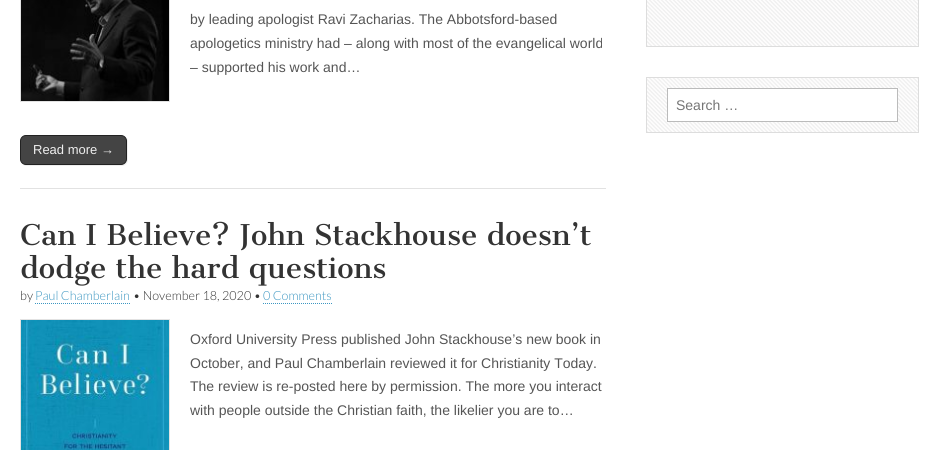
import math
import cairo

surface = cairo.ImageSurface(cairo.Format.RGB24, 939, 450)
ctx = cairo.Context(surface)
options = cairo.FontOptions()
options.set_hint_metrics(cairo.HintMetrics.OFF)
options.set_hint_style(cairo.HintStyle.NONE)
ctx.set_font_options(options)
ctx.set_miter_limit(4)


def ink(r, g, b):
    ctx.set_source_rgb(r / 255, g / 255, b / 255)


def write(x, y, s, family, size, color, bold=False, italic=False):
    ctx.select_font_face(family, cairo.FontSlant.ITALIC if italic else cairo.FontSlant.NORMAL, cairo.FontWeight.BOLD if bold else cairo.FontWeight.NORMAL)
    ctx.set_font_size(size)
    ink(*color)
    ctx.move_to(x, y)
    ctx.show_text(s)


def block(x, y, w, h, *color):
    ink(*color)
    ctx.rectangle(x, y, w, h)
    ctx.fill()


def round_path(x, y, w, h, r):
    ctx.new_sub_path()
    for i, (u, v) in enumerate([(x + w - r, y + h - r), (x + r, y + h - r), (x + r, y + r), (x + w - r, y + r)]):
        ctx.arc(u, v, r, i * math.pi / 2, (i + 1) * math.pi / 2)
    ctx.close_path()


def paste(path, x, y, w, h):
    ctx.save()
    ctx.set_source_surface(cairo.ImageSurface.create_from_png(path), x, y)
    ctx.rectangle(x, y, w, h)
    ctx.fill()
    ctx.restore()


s1 = dict(family="Liberation Sans", size=14, color=(85, 85, 85))
s2 = dict(family="Liberation Sans", size=13, color=(238, 238, 238))
s3 = dict(family="Cantata One", size=28, color=(51, 51, 51))
s4 = dict(family="Lato Light", size=12.6, color=(51, 51, 51))
s5 = dict(family="Lato Light", size=12.6, color=(61, 151, 194))
s6 = dict(family="Liberation Sans", size=14, color=(117, 117, 117))

ink(255, 255, 255)
ctx.paint()
block(20, 188, 586, 1, 226, 226, 226)
ctx.rectangle(20.5, -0.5, 149, 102)
ctx.set_line_width(1)
ctx.stroke()
paste("pic1.png", 21, 0, 148, 101)
write(190, 24, "by leading apologist Ravi Zacharias. The Abbotsford-based", **s1)
write(190, 48, "apologetics ministry had – along with most of the evangelical world", **s1)
write(190, 72, "– supported his work and…", **s1)
ink(238, 238, 238)
ctx.new_path()
ctx.move_to(22, 164)
ctx.curve_to(23, 165, 25, 166, 27, 166)
ctx.line_to(122, 166)
ctx.curve_to(125, 166, 128, 163, 128, 160)
ctx.line_to(128, 142)
ctx.curve_to(128, 140, 127, 138, 126, 137)
ctx.curve_to(127, 138, 127, 140, 127, 141)
ctx.line_to(127, 159)
ctx.curve_to(127, 162, 124, 165, 121, 165)
ctx.line_to(26, 165)
ctx.curve_to(25, 165, 23, 165, 22, 164)
ctx.close_path()
ctx.fill()
ink(68, 68, 68)
round_path(20.5, 135.5, 106, 29, 5.5)
ctx.fill_preserve()
ink(34, 34, 34)
ctx.stroke()
write(33, 154, "Read more →", **s2)
write(20, 245, "Can I Believe? John Stackhouse doesn’t", **s3)
write(20, 278, "dodge the hard questions", **s3)
write(20, 300, "by", **s4)
write(35, 300, "Paul Chamberlain", **s5)
ctx.new_path()
ctx.move_to(35, 303.5)
ctx.line_to(130, 303.5)
ctx.set_dash([1, 1])
ctx.stroke()
write(133, 300, "• November 18, 2020 •", **s4)
write(263, 300, "0 Comments", **s5)
ctx.new_path()
ctx.move_to(263, 303.5)
ctx.line_to(332, 303.5)
ctx.stroke()
ctx.rectangle(20.5, 319.5, 149, 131)
ink(226, 226, 226)
ctx.set_dash([])
ctx.stroke()
paste("pic2.png", 21, 320, 148, 130)
write(190, 344, "Oxford University Press published John Stackhouse’s new book in", **s1)
write(190, 368, "October, and Paul Chamberlain reviewed it for Christianity Today.", **s1)
write(190, 391, "The review is re-posted here by permission. The more you interact", **s1)
write(190, 415, "with people outside the Christian faith, the likelier you are to…", **s1)
paste("pic3.png", 647, 0, 271, 46)
ctx.rectangle(646.5, -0.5, 272, 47)
ink(221, 221, 221)
ctx.stroke()
paste("pic4.png", 647, 78, 271, 54)
ctx.rectangle(646.5, 77.5, 272, 55)
ctx.stroke()
ink(255, 255, 255)
ctx.rectangle(667.5, 88.5, 230, 33)
ctx.fill_preserve()
ink(187, 187, 187)
ctx.stroke()
write(676, 110, "Search …", **s6)
surface.write_to_png("screenshot.png")
